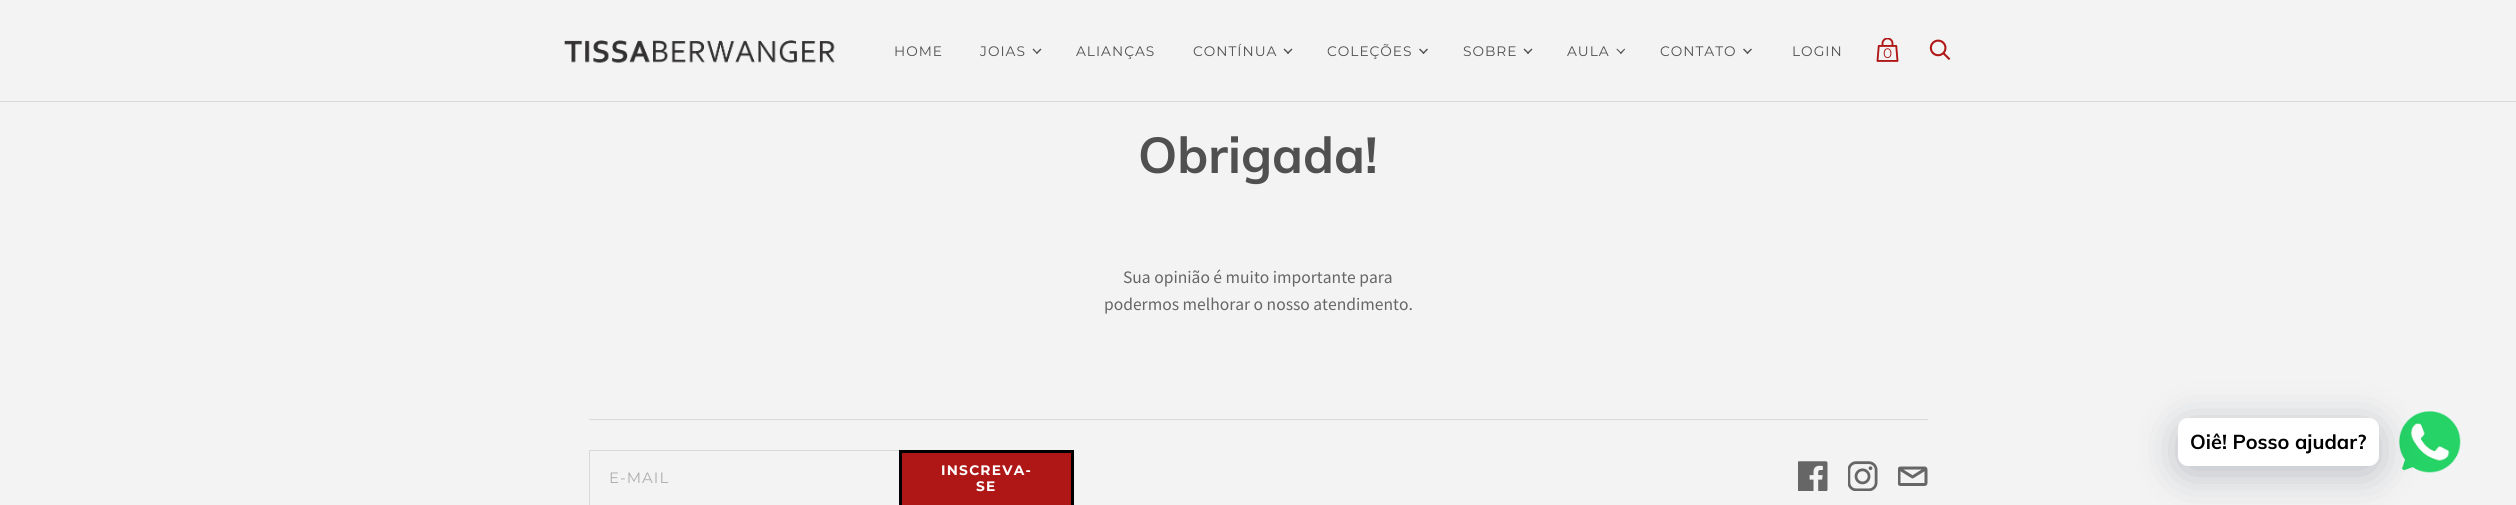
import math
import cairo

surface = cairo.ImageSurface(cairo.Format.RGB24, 2516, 505)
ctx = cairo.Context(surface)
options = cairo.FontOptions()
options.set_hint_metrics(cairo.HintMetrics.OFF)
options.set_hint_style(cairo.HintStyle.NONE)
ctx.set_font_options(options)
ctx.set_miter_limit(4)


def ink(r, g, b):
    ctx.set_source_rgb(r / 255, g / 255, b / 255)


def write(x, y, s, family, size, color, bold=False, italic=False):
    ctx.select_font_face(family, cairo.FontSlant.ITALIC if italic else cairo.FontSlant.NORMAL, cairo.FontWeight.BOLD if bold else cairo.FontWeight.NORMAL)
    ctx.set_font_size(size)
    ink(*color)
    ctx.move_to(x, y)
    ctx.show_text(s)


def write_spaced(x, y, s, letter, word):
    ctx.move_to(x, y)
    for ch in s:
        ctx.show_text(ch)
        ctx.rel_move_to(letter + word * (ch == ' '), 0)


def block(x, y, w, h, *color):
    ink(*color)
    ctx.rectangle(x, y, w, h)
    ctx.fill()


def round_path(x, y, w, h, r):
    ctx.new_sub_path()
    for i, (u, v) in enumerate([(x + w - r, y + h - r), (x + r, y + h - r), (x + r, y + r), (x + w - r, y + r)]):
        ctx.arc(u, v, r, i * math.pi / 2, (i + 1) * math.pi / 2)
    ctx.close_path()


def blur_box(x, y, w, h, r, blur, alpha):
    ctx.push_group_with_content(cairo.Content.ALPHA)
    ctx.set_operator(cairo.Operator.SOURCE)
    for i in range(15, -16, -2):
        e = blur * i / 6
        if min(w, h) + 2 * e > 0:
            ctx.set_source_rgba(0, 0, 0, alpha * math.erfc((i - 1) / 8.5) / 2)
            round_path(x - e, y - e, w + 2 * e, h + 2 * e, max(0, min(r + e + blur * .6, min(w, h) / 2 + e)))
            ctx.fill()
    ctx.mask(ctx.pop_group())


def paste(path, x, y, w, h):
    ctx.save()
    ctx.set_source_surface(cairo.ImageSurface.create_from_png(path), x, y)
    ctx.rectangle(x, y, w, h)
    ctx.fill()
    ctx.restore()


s1 = dict(family="Montserrat", size=13.75, color=(175, 23, 23))
s2 = dict(family="Muli", size=50, color=(80, 80, 80), bold=True)
s3 = dict(family="Source Sans Pro", size=17.5, color=(102, 102, 102))
s4 = dict(family="Muli", size=20, color=(0, 0, 0), bold=True)

ink(243, 243, 243)
ctx.paint()
block(0, 101, 2516, 1, 217, 217, 217)
paste("pic1.png", 564, 40, 271, 23)
ctx.select_font_face("Montserrat")
ctx.set_font_size(13.75)
ink(80, 80, 80)
write_spaced(894, 56, "HOME", 1, 0)
write_spaced(980, 56, "JOIAS", 1, 0)
ctx.new_path()
ctx.move_to(1036, 53)
ctx.line_to(1040.5, 48.5)
ctx.line_to(1041.5, 49.5)
ctx.line_to(1037, 54)
ctx.close_path()
ctx.fill()
ctx.new_path()
ctx.move_to(1032.5, 49.5)
ctx.line_to(1033.5, 48.5)
ctx.line_to(1037.5, 53)
ctx.line_to(1037, 54)
ctx.close_path()
ctx.fill()
write_spaced(1076, 56, "ALIANÇAS", 1, 0)
write_spaced(1193, 56, "CONTÍNUA", 1, 0)
ctx.new_path()
ctx.move_to(1287, 53)
ctx.line_to(1291.5, 48.5)
ctx.line_to(1292.5, 49.5)
ctx.line_to(1288, 54)
ctx.close_path()
ctx.fill()
ctx.new_path()
ctx.move_to(1283.5, 49.5)
ctx.line_to(1284.5, 48.5)
ctx.line_to(1289, 53)
ctx.line_to(1288, 54)
ctx.close_path()
ctx.fill()
write_spaced(1327, 56, "COLEÇÕES", 1, 0)
ctx.new_path()
ctx.move_to(1422.5, 53)
ctx.line_to(1427, 48.5)
ctx.line_to(1428, 49.5)
ctx.line_to(1423.5, 54)
ctx.close_path()
ctx.fill()
ctx.new_path()
ctx.move_to(1419, 49.5)
ctx.line_to(1420, 48.5)
ctx.line_to(1424.5, 53)
ctx.line_to(1423.5, 54)
ctx.close_path()
ctx.fill()
write_spaced(1463, 56, "SOBRE", 1, 0)
ctx.new_path()
ctx.move_to(1527, 53)
ctx.line_to(1531.5, 48.5)
ctx.line_to(1532.5, 49.5)
ctx.line_to(1528, 54)
ctx.close_path()
ctx.fill()
ctx.new_path()
ctx.move_to(1523.5, 49.5)
ctx.line_to(1524.5, 48.5)
ctx.line_to(1529, 53)
ctx.line_to(1528, 54)
ctx.close_path()
ctx.fill()
write_spaced(1567, 56, "AULA", 1, 0)
ctx.new_path()
ctx.move_to(1620, 53)
ctx.line_to(1624.5, 48.5)
ctx.line_to(1625, 49.5)
ctx.line_to(1621, 54)
ctx.close_path()
ctx.fill()
ctx.new_path()
ctx.move_to(1616.5, 49.5)
ctx.line_to(1617, 48.5)
ctx.line_to(1621.5, 53)
ctx.line_to(1621, 54)
ctx.close_path()
ctx.fill()
write_spaced(1660, 56, "CONTATO", 1, 0)
ctx.new_path()
ctx.move_to(1746.5, 53)
ctx.line_to(1751, 48.5)
ctx.line_to(1752, 49.5)
ctx.line_to(1747.5, 54)
ctx.close_path()
ctx.fill()
ctx.new_path()
ctx.move_to(1743, 49.5)
ctx.line_to(1744, 48.5)
ctx.line_to(1748.5, 53)
ctx.line_to(1747.5, 54)
ctx.close_path()
ctx.fill()
write_spaced(1792, 56, "LOGIN", 1, 0)
paste("pic2.png", 1876, 38, 23, 24)
write(1883, 58, "0", **s1)
paste("pic3.png", 1929, 39, 22, 21)
write(1138, 173, "Obrigada!", **s2)
write(1123, 283, "Sua opinião é muito importante para", **s3)
write(1104, 310, "podermos melhorar o nosso atendimento.", **s3)
paste("pic4.png", 2399, 411, 62, 62)
ink(0, 18, 46)
blur_box(2178, 425, 201, 49, 10, 20, 0.24)
ink(255, 255, 255)
round_path(2178, 418, 201, 48, 10)
ctx.fill()
write(2190, 449, "Oiê! Posso ajudar?", **s4)
block(589, 419, 1339, 1, 217, 217, 217)
block(589, 450, 310, 1, 217, 217, 217)
block(589, 450, 1, 55, 217, 217, 217)
ctx.select_font_face("Montserrat")
ctx.set_font_size(15)
ink(173, 173, 173)
write_spaced(609, 483, "E-MAIL", 1, 0)
ink(175, 23, 23)
ctx.rectangle(900.5, 451.5, 172, 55)
ctx.fill_preserve()
ink(0, 0, 0)
ctx.set_line_width(3)
ctx.stroke()
ctx.select_font_face("Montserrat", cairo.FontSlant.NORMAL, cairo.FontWeight.BOLD)
ctx.set_font_size(13.75)
ink(255, 255, 255)
write_spaced(941, 475, "INSCREVA-", 1.25, 0)
write_spaced(976, 491, "SE", 1.25, 0)
paste("pic5.png", 1798, 461, 30, 30)
paste("pic6.png", 1848, 461, 30, 30)
paste("pic7.png", 1898, 466, 30, 20)
surface.write_to_png("screenshot.png")
